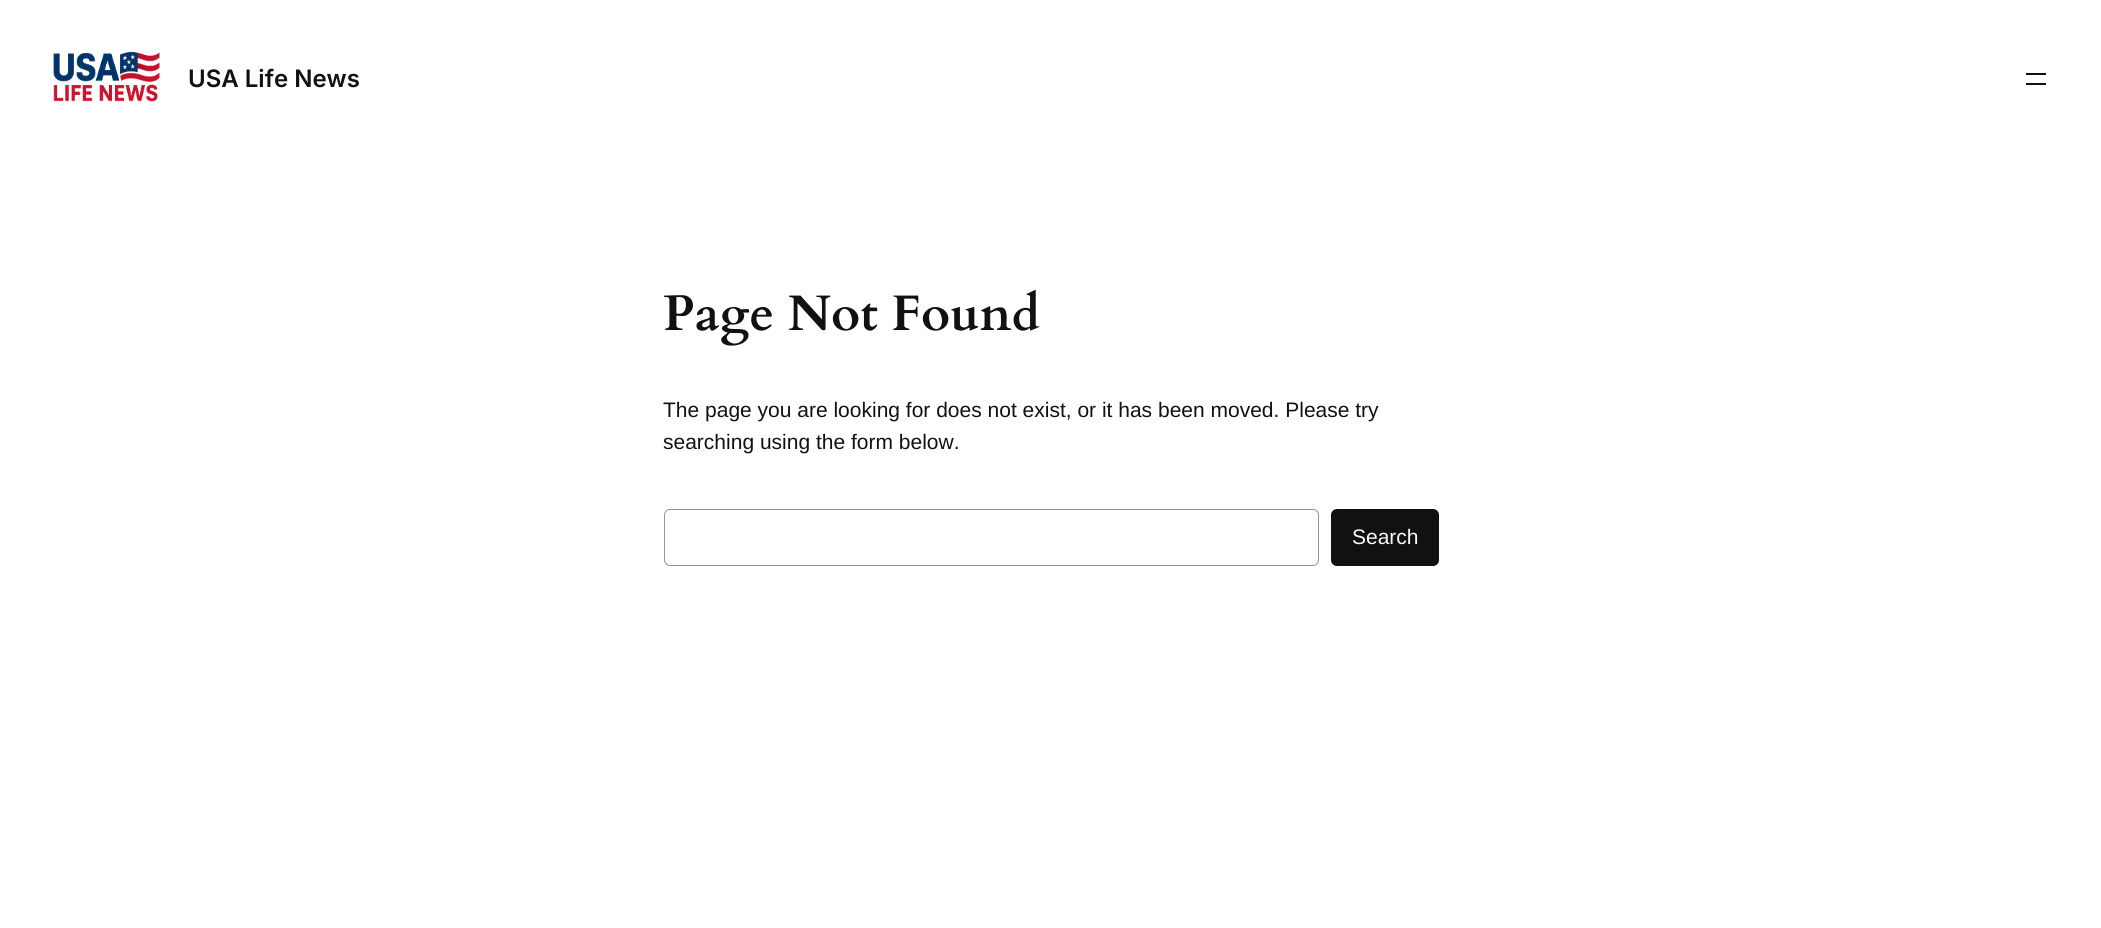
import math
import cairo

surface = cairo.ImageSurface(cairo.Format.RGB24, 2101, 928)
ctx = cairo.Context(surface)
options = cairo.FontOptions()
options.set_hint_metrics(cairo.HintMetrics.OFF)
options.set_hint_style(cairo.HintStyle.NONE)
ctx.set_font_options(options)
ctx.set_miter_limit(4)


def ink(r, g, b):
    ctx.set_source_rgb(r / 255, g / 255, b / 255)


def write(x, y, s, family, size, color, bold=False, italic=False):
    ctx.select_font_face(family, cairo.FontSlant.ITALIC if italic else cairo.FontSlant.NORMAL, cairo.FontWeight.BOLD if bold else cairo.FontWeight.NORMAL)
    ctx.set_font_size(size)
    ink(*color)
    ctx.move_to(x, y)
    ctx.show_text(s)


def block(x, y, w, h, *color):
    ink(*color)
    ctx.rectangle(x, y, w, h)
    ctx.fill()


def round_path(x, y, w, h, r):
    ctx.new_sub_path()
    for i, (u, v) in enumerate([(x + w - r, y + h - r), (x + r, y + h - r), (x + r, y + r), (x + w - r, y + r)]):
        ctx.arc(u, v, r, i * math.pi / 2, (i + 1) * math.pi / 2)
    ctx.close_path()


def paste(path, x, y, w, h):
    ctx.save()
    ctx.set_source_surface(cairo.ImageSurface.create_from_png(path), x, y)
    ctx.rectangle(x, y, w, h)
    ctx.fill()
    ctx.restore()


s1 = dict(family="Inter SemiBold", size=24, color=(17, 17, 17))
s2 = dict(family="Cardo", size=50, color=(17, 17, 17), bold=True)
s3 = dict(family="Liberation Sans", size=21, color=(17, 17, 17))
s4 = dict(family="Liberation Sans", size=21, color=(249, 249, 249))

ink(255, 255, 255)
ctx.paint()
paste("pic1.png", 53, 51, 107, 51)
write(188, 87, "USA Life News", **s1)
block(2026, 73, 20, 2, 17, 17, 17)
block(2026, 83, 20, 2, 17, 17, 17)
write(663, 330, "Page Not Found", **s2)
write(663, 417, "The page you are looking for does not exist, or it has been moved. Please try", **s3)
write(663, 449, "searching using the form below.", **s3)
round_path(664.5, 509.5, 654, 56, 5.5)
ink(148, 148, 148)
ctx.set_line_width(1)
ctx.stroke()
ink(17, 17, 17)
round_path(1331, 509, 108, 57, 6)
ctx.fill()
write(1352, 544, "Search", **s4)
surface.write_to_png("screenshot.png")
